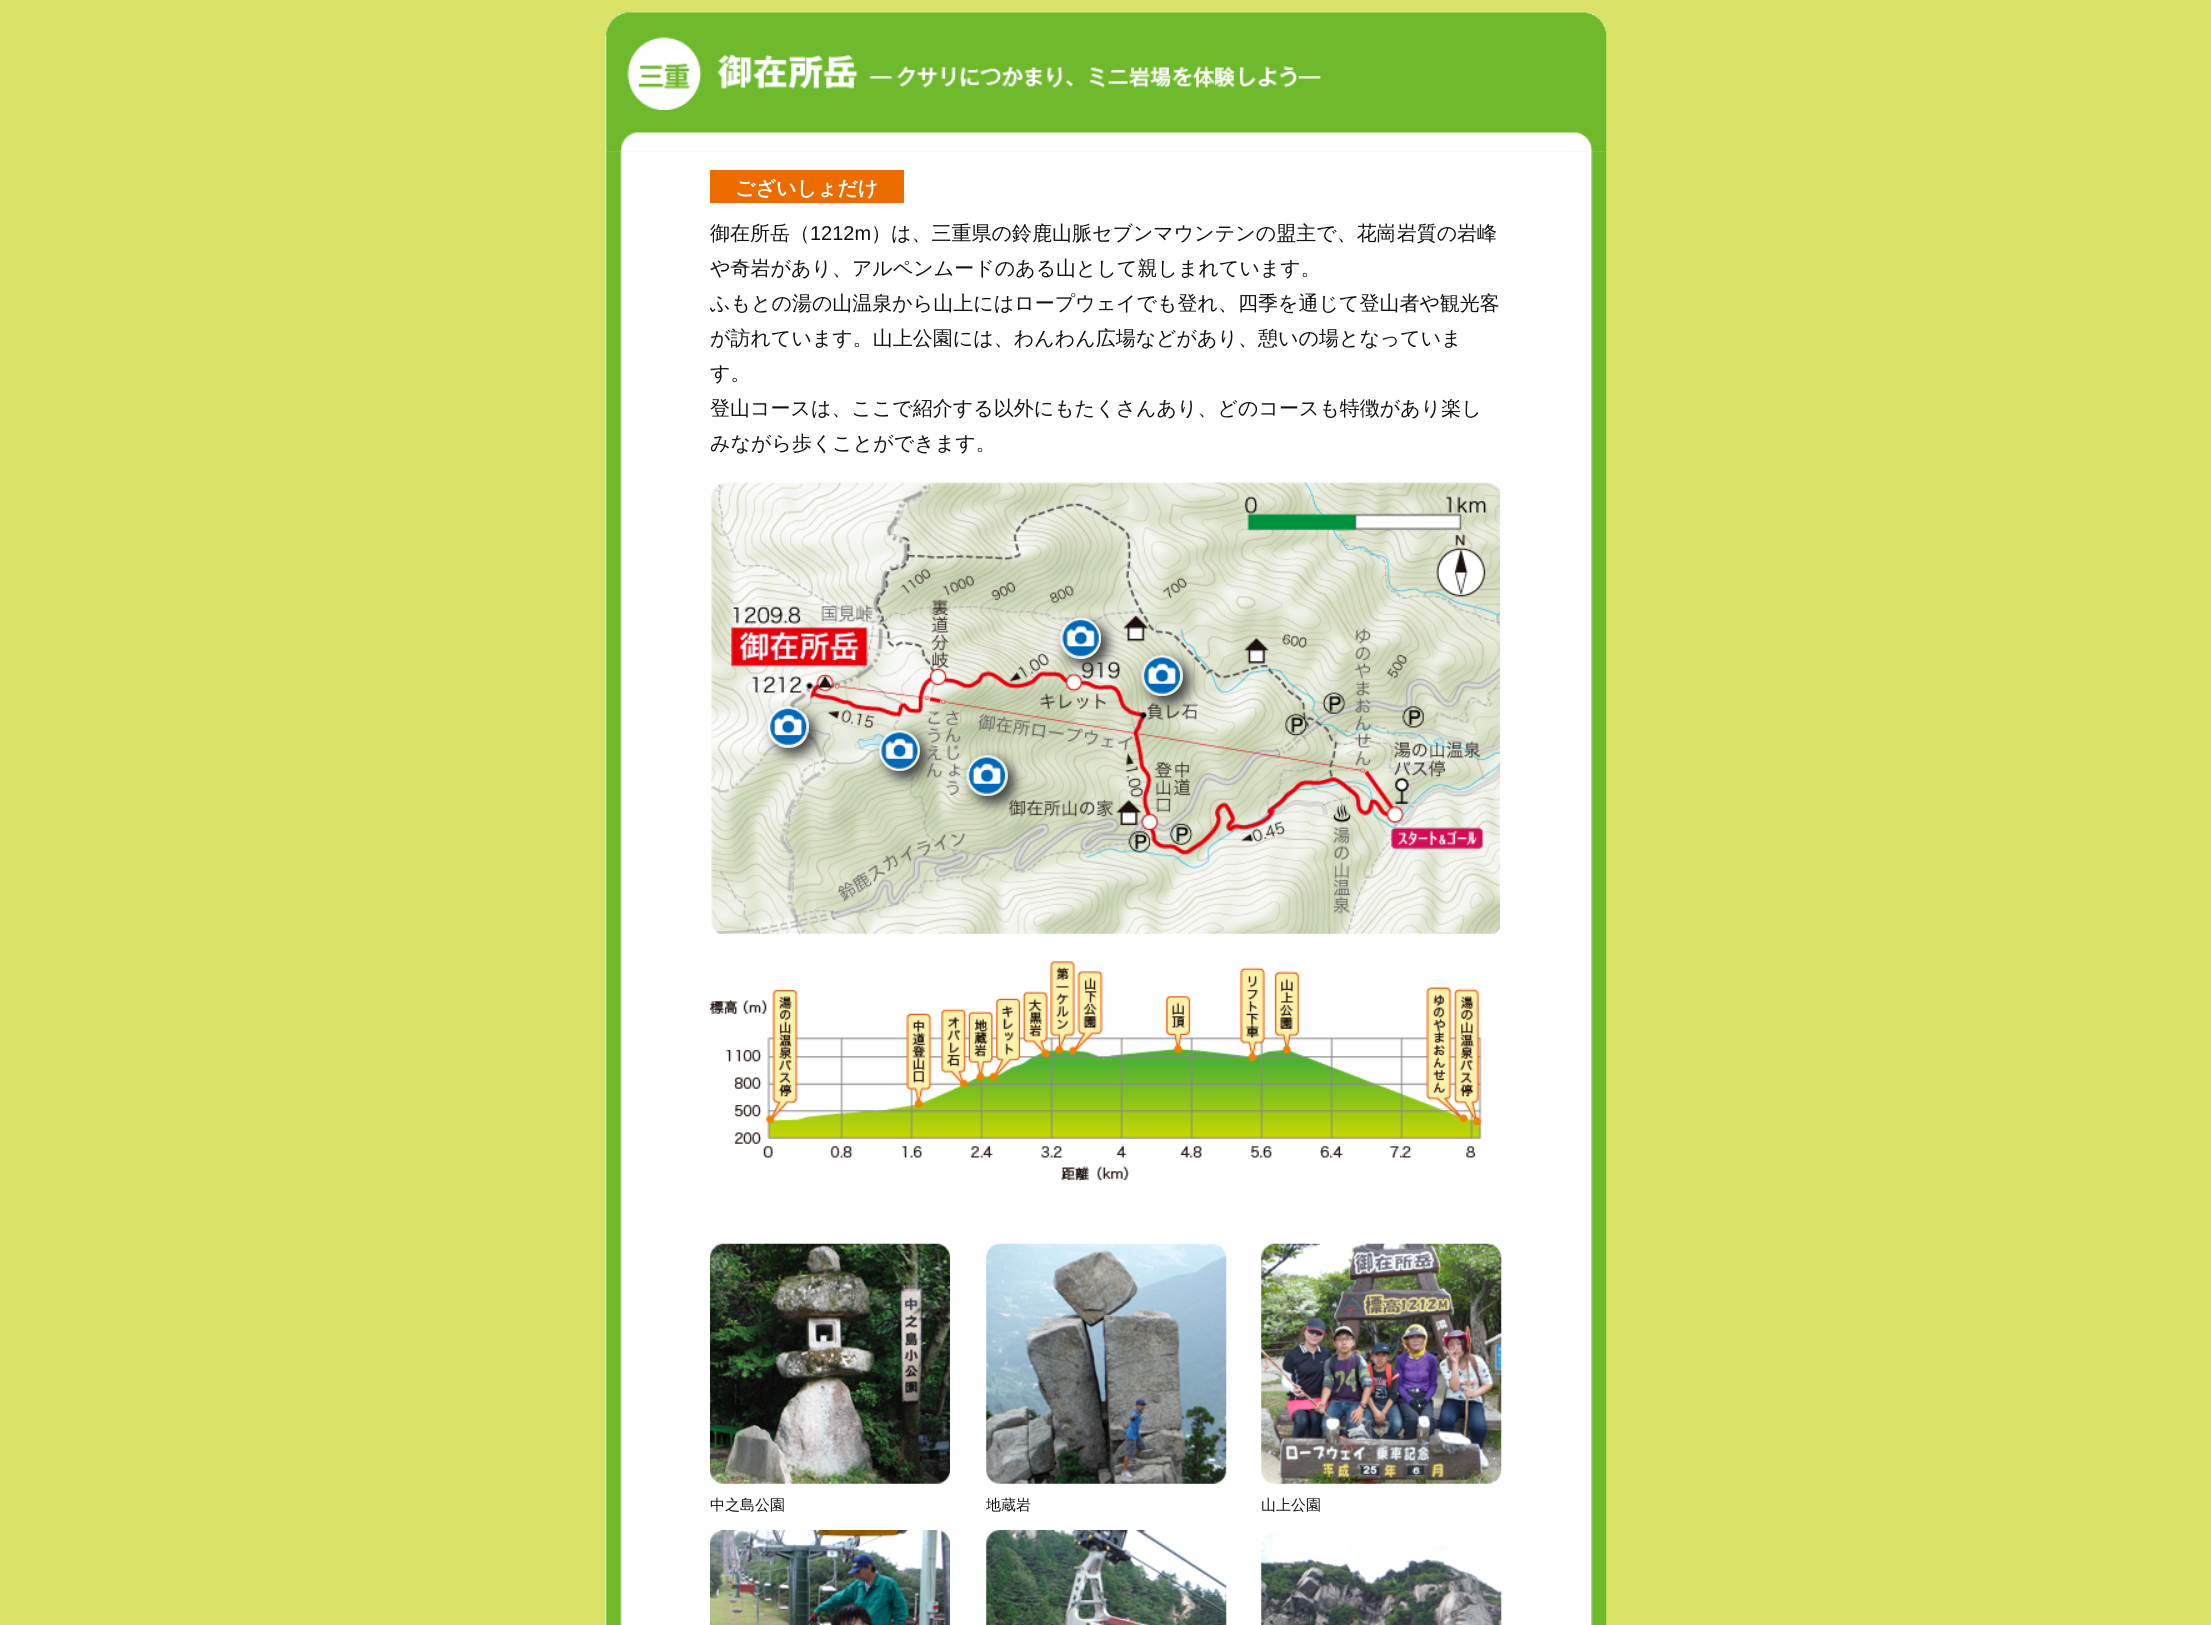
import math
import cairo

surface = cairo.ImageSurface(cairo.Format.RGB24, 2211, 1625)
ctx = cairo.Context(surface)
options = cairo.FontOptions()
options.set_hint_metrics(cairo.HintMetrics.OFF)
options.set_hint_style(cairo.HintStyle.NONE)
ctx.set_font_options(options)
ctx.set_miter_limit(4)


def ink(r, g, b):
    ctx.set_source_rgb(r / 255, g / 255, b / 255)


def write(x, y, s, family, size, color, bold=False, italic=False):
    ctx.select_font_face(family, cairo.FontSlant.ITALIC if italic else cairo.FontSlant.NORMAL, cairo.FontWeight.BOLD if bold else cairo.FontWeight.NORMAL)
    ctx.set_font_size(size)
    ink(*color)
    ctx.move_to(x, y)
    ctx.show_text(s)


def block(x, y, w, h, *color):
    ink(*color)
    ctx.rectangle(x, y, w, h)
    ctx.fill()


def round_path(x, y, w, h, r):
    ctx.new_sub_path()
    for i, (u, v) in enumerate([(x + w - r, y + h - r), (x + r, y + h - r), (x + r, y + r), (x + w - r, y + r)]):
        ctx.arc(u, v, r, i * math.pi / 2, (i + 1) * math.pi / 2)
    ctx.close_path()


def blur_box(x, y, w, h, r, blur, alpha):
    ctx.push_group_with_content(cairo.Content.ALPHA)
    ctx.set_operator(cairo.Operator.SOURCE)
    for i in range(15, -16, -2):
        e = blur * i / 6
        if min(w, h) + 2 * e > 0:
            ctx.set_source_rgba(0, 0, 0, alpha * math.erfc((i - 1) / 8.5) / 2)
            round_path(x - e, y - e, w + 2 * e, h + 2 * e, max(0, min(r + e + blur * .6, min(w, h) / 2 + e)))
            ctx.fill()
    ctx.mask(ctx.pop_group())


def paste(path, x, y, w, h):
    ctx.save()
    ctx.set_source_surface(cairo.ImageSurface.create_from_png(path), x, y)
    ctx.rectangle(x, y, w, h)
    ctx.fill()
    ctx.restore()


s1 = dict(family="WenQuanYi Zen Hei", size=20, color=(255, 255, 255), bold=True)
s2 = dict(family="WenQuanYi Zen Hei Medium", size=20, color=(17, 17, 17))
s3 = dict(family="Liberation Sans", size=20, color=(17, 17, 17))
s4 = dict(family="WenQuanYi Zen Hei Medium", size=15, color=(17, 17, 17))

ink(217, 227, 103)
ctx.paint()
paste("pic3.png", 605, 151, 1002, 1474)
paste("pic1.png", 605, 12, 1002, 140)
paste("pic2.png", 627, 37, 695, 73)
block(710, 170, 194, 33, 237, 108, 0)
write(735, 195, "ございしょだけ", **s1)
write(710, 240, "御在所岳（", **s2)
write(810, 240, "1212m", **s3)
write(871, 240, "）は、三重県の鈴鹿山脈セブンマウンテンの盟主で、花崗岩質の岩峰", **s2)
write(710, 275, "や奇岩があり、アルペンムードのある山として親しまれています。", **s2)
write(710, 310, "ふもとの湯の山温泉から山上にはロープウェイでも登れ、四季を通じて登山者や観光客", **s2)
write(710, 345, "が訪れています。山上公園には、わんわん広場などがあり、憩いの場となっていま", **s2)
write(710, 380, "す。", **s2)
write(710, 415, "登山コースは、ここで紹介する以外にもたくさんあり、どのコースも特徴があり楽し", **s2)
write(710, 450, "みながら歩くことができます。", **s2)
paste("pic4.png", 711, 482, 789, 452)
ctx.save()
ctx.set_fill_rule(cairo.FillRule.EVEN_ODD)
ctx.new_path()
ctx.move_to(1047, 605)
ctx.line_to(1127, 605)
ctx.line_to(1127, 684)
ctx.line_to(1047, 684)
ctx.close_path()
ctx.move_to(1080, 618)
ctx.line_to(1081, 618)
ctx.curve_to(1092, 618, 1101, 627, 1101, 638)
ctx.line_to(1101, 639)
ctx.curve_to(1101, 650, 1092, 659, 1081, 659)
ctx.line_to(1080, 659)
ctx.curve_to(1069, 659, 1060, 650, 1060, 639)
ctx.line_to(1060, 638)
ctx.curve_to(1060, 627, 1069, 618, 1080, 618)
ctx.close_path()
ctx.clip()
ink(68, 68, 68)
blur_box(1066, 624, 42, 41, 20, 6, 1)
ctx.restore()
paste("pic5.png", 1060, 617, 41, 42)
ctx.save()
ctx.set_fill_rule(cairo.FillRule.EVEN_ODD)
ctx.new_path()
ctx.move_to(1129, 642)
ctx.line_to(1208, 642)
ctx.line_to(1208, 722)
ctx.line_to(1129, 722)
ctx.close_path()
ctx.move_to(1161, 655)
ctx.line_to(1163, 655)
ctx.curve_to(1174, 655, 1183, 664, 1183, 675)
ctx.line_to(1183, 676)
ctx.curve_to(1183, 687, 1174, 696, 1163, 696)
ctx.line_to(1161, 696)
ctx.curve_to(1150, 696, 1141, 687, 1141, 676)
ctx.line_to(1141, 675)
ctx.curve_to(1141, 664, 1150, 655, 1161, 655)
ctx.close_path()
ctx.clip()
ink(68, 68, 68)
blur_box(1148, 661, 41, 42, 20, 6, 1)
ctx.restore()
paste("pic6.png", 1141, 655, 42, 41)
ctx.save()
ctx.set_fill_rule(cairo.FillRule.EVEN_ODD)
ctx.new_path()
ctx.move_to(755, 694)
ctx.line_to(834, 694)
ctx.line_to(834, 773)
ctx.line_to(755, 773)
ctx.close_path()
ctx.move_to(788, 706)
ctx.line_to(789, 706)
ctx.curve_to(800, 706, 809, 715, 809, 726)
ctx.line_to(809, 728)
ctx.curve_to(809, 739, 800, 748, 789, 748)
ctx.line_to(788, 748)
ctx.curve_to(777, 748, 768, 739, 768, 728)
ctx.line_to(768, 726)
ctx.curve_to(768, 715, 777, 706, 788, 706)
ctx.close_path()
ctx.clip()
ink(68, 68, 68)
blur_box(774, 713, 41, 41, 20, 6, 1)
ctx.restore()
paste("pic7.png", 769, 706, 40, 42)
ctx.save()
ctx.set_fill_rule(cairo.FillRule.EVEN_ODD)
ctx.new_path()
ctx.move_to(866, 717)
ctx.line_to(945, 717)
ctx.line_to(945, 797)
ctx.line_to(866, 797)
ctx.close_path()
ctx.move_to(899, 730)
ctx.line_to(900, 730)
ctx.curve_to(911, 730, 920, 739, 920, 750)
ctx.line_to(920, 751)
ctx.curve_to(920, 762, 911, 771, 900, 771)
ctx.line_to(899, 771)
ctx.curve_to(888, 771, 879, 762, 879, 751)
ctx.line_to(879, 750)
ctx.curve_to(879, 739, 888, 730, 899, 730)
ctx.close_path()
ctx.clip()
ink(68, 68, 68)
blur_box(885, 736, 41, 42, 20, 6, 1)
ctx.restore()
paste("pic8.png", 879, 730, 41, 41)
ctx.save()
ctx.set_fill_rule(cairo.FillRule.EVEN_ODD)
ctx.new_path()
ctx.move_to(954, 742)
ctx.line_to(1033, 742)
ctx.line_to(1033, 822)
ctx.line_to(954, 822)
ctx.close_path()
ctx.move_to(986, 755)
ctx.line_to(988, 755)
ctx.curve_to(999, 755, 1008, 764, 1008, 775)
ctx.line_to(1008, 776)
ctx.curve_to(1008, 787, 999, 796, 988, 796)
ctx.line_to(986, 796)
ctx.curve_to(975, 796, 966, 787, 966, 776)
ctx.line_to(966, 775)
ctx.curve_to(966, 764, 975, 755, 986, 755)
ctx.close_path()
ctx.clip()
ink(68, 68, 68)
blur_box(973, 761, 41, 42, 20, 6, 1)
ctx.restore()
paste("pic9.png", 966, 755, 42, 41)
paste("pic10.png", 710, 961, 772, 220)
paste("pic11.png", 710, 1243, 240, 241)
paste("pic12.png", 986, 1243, 241, 241)
paste("pic13.png", 1261, 1243, 241, 241)
write(710, 1510, "中之島公園", **s4)
write(986, 1510, "地蔵岩", **s4)
write(1261, 1510, "山上公園", **s4)
paste("pic14.png", 710, 1530, 240, 95)
paste("pic15.png", 986, 1530, 241, 95)
paste("pic16.png", 1261, 1533, 241, 92)
surface.write_to_png("screenshot.png")
